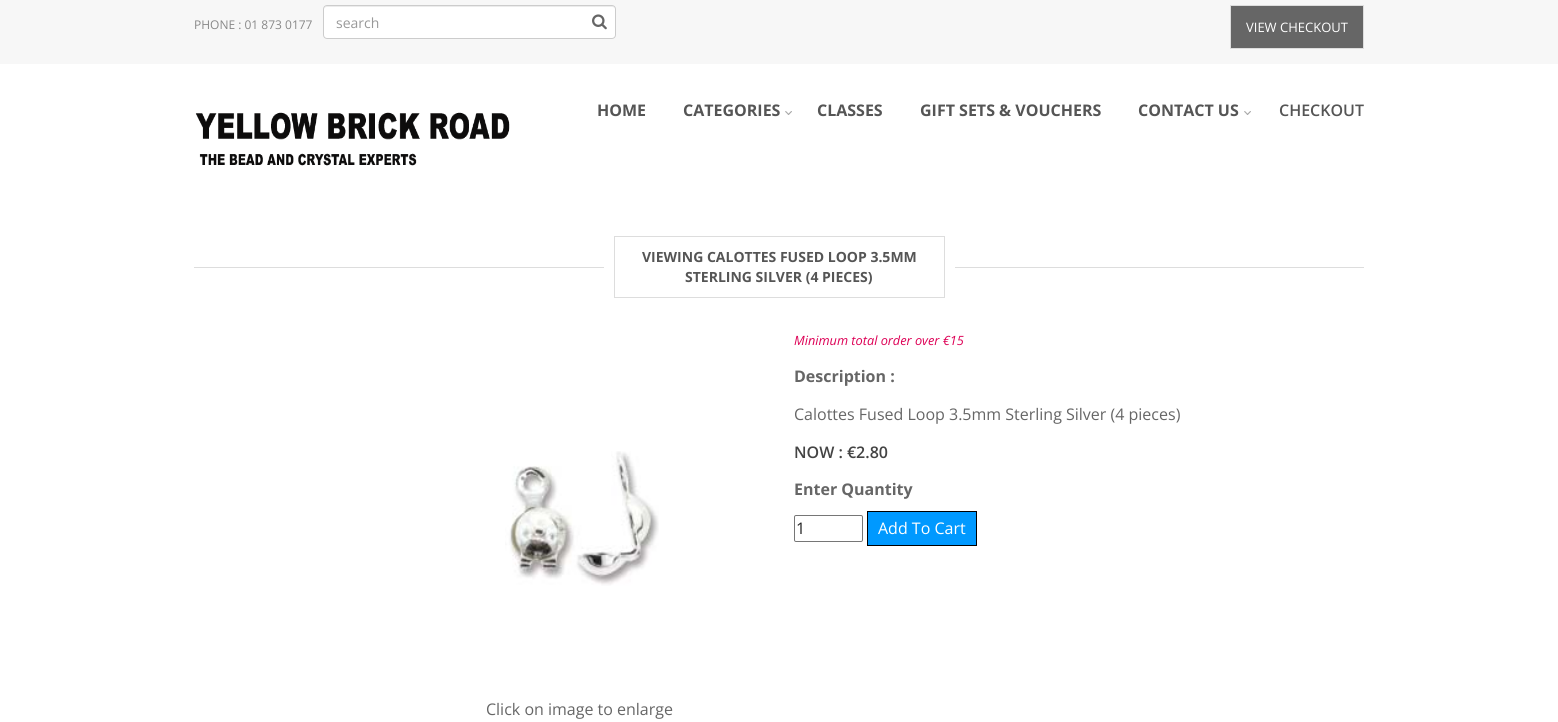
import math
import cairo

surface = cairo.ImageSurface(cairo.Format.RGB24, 1558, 722)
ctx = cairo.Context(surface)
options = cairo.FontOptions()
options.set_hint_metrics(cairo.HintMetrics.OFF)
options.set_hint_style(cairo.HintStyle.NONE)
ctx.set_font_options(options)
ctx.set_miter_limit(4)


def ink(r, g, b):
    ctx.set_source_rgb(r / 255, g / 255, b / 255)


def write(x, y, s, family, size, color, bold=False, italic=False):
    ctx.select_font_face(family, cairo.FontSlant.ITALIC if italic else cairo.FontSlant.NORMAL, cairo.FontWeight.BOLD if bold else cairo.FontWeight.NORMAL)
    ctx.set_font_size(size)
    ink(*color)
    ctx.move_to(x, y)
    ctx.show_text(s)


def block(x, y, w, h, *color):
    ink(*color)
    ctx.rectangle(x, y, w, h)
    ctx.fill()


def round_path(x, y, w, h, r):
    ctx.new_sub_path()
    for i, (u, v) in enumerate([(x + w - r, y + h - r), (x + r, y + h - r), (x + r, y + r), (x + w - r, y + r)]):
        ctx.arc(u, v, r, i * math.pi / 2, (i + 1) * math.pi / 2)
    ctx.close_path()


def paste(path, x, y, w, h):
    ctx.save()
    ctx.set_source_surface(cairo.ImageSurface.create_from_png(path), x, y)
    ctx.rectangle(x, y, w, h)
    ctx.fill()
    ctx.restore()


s1 = dict(family="Open Sans", size=12, color=(136, 136, 136))
s2 = dict(family="Open Sans", size=14, color=(153, 153, 153))
s3 = dict(family="Open Sans", size=13, color=(255, 255, 255))
s4 = dict(family="Open Sans", size=16, color=(85, 85, 85), bold=True)
s5 = dict(family="Open Sans SemiBold", size=16, color=(85, 85, 85))
s6 = dict(family="Open Sans", size=14, color=(85, 85, 85), bold=True)
s7 = dict(family="Open Sans", size=12.75, color=(221, 0, 85), italic=True)
s8 = dict(family="Open Sans", size=16, color=(102, 102, 102), bold=True)
s9 = dict(family="Open Sans", size=16, color=(102, 102, 102))
s10 = dict(family="Open Sans SemiBold", size=16, color=(68, 68, 68))
s11 = dict(family="Open Sans", size=16, color=(34, 34, 34))
s12 = dict(family="Open Sans", size=16, color=(255, 255, 255))

ink(255, 255, 255)
ctx.paint()
block(0, 0, 1558, 64, 247, 247, 247)
write(194, 29, "PHONE : 01 873 0177", **s1)
ink(255, 255, 255)
round_path(323, 5, 293, 34, 4)
ctx.fill()
ink(236, 236, 236)
ctx.new_path()
ctx.move_to(327, 7)
ctx.line_to(612, 7)
ctx.curve_to(614, 7, 615, 8, 615, 10)
ctx.curve_to(615, 8, 614, 6, 612, 6)
ctx.line_to(327, 6)
ctx.curve_to(325, 6, 324, 8, 324, 10)
ctx.curve_to(324, 8, 325, 7, 327, 7)
ctx.close_path()
ctx.fill()
round_path(323.5, 5.5, 292, 33, 3.5)
ink(204, 204, 204)
ctx.set_line_width(1)
ctx.stroke()
write(336, 28, "search", **s2)
paste("pic1.png", 592, 14, 15, 16)
ink(102, 102, 102)
ctx.rectangle(1230.5, 5.5, 133, 43)
ctx.fill_preserve()
ink(221, 221, 221)
ctx.stroke()
write(1246, 32, "VIEW CHECKOUT", **s3)
write(597, 116, "HOME", **s4)
paste("pic2.png", 785, 111, 7, 4)
write(683, 116, "CATEGORIES", **s4)
write(817, 116, "CLASSES", **s4)
write(920, 116, "GIFT SETS & VOUCHERS", **s4)
paste("pic2.png", 1244, 111, 7, 4)
write(1138, 116, "CONTACT US", **s4)
write(1279, 116, "CHECKOUT", **s5)
paste("pic3.png", 195, 112, 315, 54)
block(194, 267, 1170, 1, 221, 221, 221)
block(604, 267, 351, 1, 255, 255, 255)
ctx.rectangle(614.5, 236.5, 330, 61)
ink(221, 221, 221)
ctx.stroke()
write(642, 262, "VIEWING CALOTTES FUSED LOOP 3.5MM", **s6)
write(685, 282, "STERLING SILVER (4 PIECES)", **s6)
write(794, 345, "Minimum total order over €15", **s7)
write(794, 382, "Description :", **s8)
write(794, 420, "Calottes Fused Loop 3.5mm Sterling Silver (4 pieces)", **s9)
write(794, 458, "NOW : €2.80", **s10)
write(794, 495, "Enter Quantity", **s8)
round_path(794.5, 515.5, 68, 26, 1.5)
ink(118, 118, 118)
ctx.stroke()
write(796, 534, "1", **s11)
ink(0, 153, 255)
ctx.rectangle(867.5, 511.5, 109, 34)
ctx.fill_preserve()
ink(0, 0, 0)
ctx.stroke()
write(878, 534, "Add To Cart", **s12)
paste("pic4.png", 505, 451, 154, 135)
write(486, 715, "Click on image to enlarge", **s9)
surface.write_to_png("screenshot.png")
